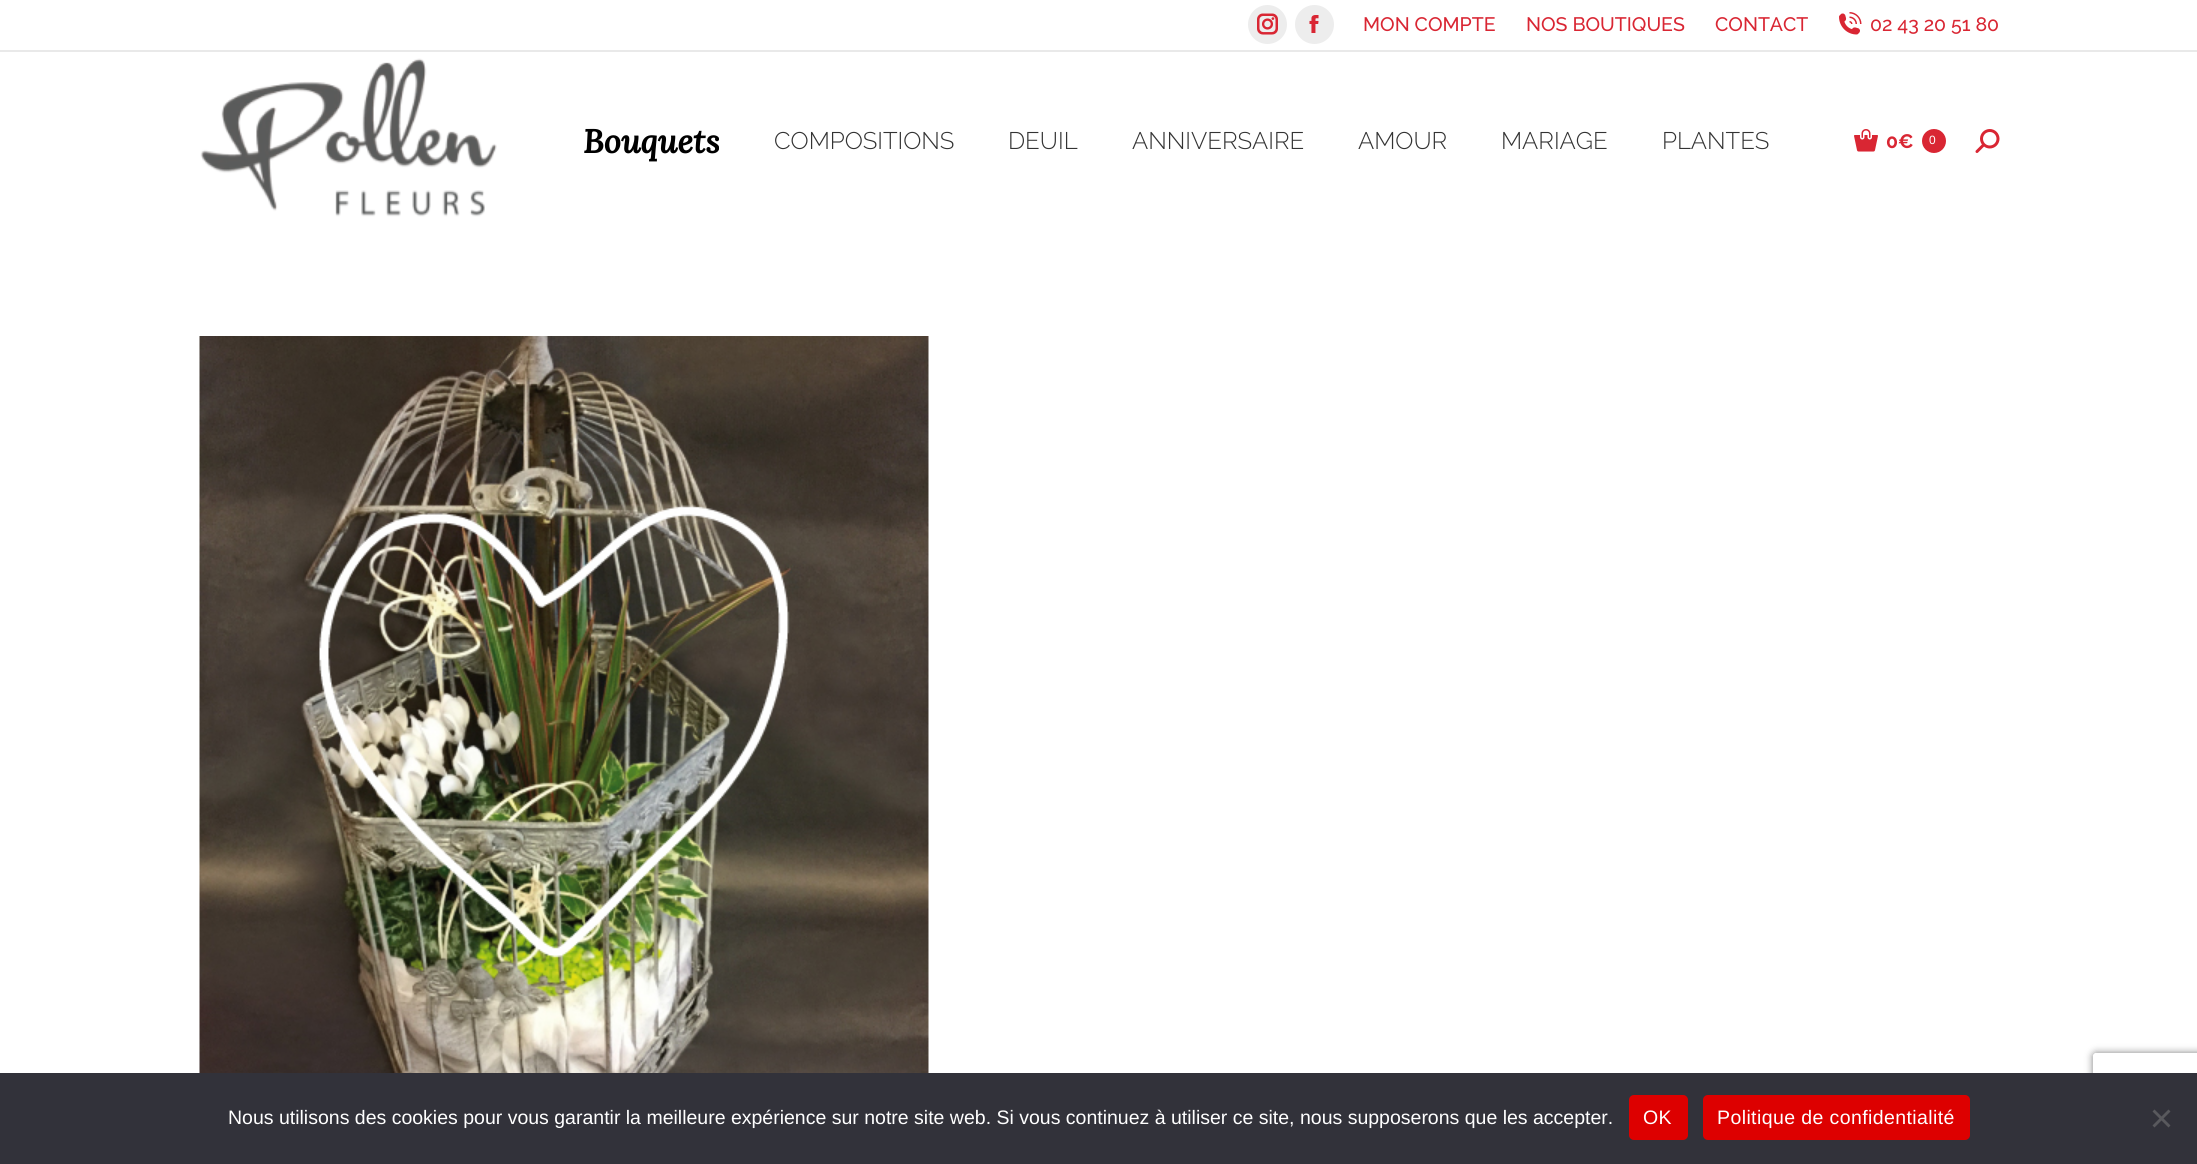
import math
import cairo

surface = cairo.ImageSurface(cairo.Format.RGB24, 2197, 1164)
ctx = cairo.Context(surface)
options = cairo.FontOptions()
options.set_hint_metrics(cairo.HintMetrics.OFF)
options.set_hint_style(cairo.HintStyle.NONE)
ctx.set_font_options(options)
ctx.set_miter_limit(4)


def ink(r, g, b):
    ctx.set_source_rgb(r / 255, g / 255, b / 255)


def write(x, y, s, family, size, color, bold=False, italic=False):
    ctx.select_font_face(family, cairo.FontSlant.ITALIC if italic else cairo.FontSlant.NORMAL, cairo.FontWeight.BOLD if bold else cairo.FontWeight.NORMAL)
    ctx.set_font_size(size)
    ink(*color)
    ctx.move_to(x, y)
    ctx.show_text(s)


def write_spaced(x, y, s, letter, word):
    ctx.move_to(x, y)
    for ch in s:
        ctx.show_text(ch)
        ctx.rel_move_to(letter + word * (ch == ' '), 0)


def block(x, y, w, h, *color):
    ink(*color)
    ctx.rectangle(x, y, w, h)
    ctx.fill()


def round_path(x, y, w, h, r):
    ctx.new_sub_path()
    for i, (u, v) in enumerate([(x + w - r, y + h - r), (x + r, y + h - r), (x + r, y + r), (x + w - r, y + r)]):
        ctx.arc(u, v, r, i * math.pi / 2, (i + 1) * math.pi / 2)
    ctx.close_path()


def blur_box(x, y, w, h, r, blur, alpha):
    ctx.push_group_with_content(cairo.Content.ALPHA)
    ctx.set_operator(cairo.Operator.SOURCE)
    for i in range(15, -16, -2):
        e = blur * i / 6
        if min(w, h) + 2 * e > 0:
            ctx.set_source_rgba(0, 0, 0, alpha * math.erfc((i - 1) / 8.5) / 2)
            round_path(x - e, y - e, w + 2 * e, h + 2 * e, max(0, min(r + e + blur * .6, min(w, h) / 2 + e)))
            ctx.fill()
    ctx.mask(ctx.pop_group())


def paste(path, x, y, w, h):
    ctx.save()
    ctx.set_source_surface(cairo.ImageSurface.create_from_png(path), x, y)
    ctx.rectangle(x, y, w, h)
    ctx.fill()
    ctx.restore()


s1 = dict(family="Raleway Medium", size=19.5, color=(217, 38, 51))
s2 = dict(family="Lora", size=33, color=(0, 0, 0), bold=True, italic=True)
s3 = dict(family="Raleway Light", size=24, color=(51, 51, 51))
s4 = dict(family="Raleway", size=19.5, color=(217, 38, 51), bold=True)
s5 = dict(family="Liberation Sans", size=12, color=(255, 255, 255))
s6 = dict(family="Liberation Sans", size=19.5, color=(255, 255, 255))

ink(255, 255, 255)
ctx.paint()
ink(237, 237, 237)
ctx.arc(1267.5, 24.5, 19.5, 0, 2 * math.pi)
ctx.fill()
paste("pic1.png", 1257, 13, 21, 22)
ctx.arc(1314.5, 24.5, 19.5, 0, 2 * math.pi)
ctx.fill()
paste("pic2.png", 1309, 15, 10, 18)
write(1363, 31, "MON COMPTE", **s1)
write(1526, 31, "NOS BOUTIQUES", **s1)
write(1715, 31, "CONTACT", **s1)
paste("pic3.png", 1839, 12, 23, 23)
write(1870, 31, "02 43 20 51 80", **s1)
block(0, 50, 2197, 2, 233, 233, 233)
paste("pic4.png", 200, 58, 297, 159)
write(583, 153, "Bouquets", **s2)
write(774, 149, "COMPOSITIONS", **s3)
write(1008, 149, "DEUIL", **s3)
write(1132, 149, "ANNIVERSAIRE", **s3)
write(1358, 149, "AMOUR", **s3)
write(1501, 149, "MARIAGE", **s3)
write(1662, 149, "PLANTES", **s3)
paste("pic5.png", 1854, 129, 24, 23)
write(1886, 148, "0€", **s4)
ctx.new_path()
ctx.arc(1934, 141, 12, 0, 2 * math.pi)
ctx.fill()
write(1929, 144, "0", **s5)
paste("pic6.png", 1975, 129, 25, 24)
paste("pic7.png", 199, 336, 730, 737)
ctx.save()
ctx.set_fill_rule(cairo.FillRule.EVEN_ODD)
ctx.new_path()
ctx.move_to(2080, 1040)
ctx.line_to(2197, 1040)
ctx.line_to(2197, 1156)
ctx.line_to(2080, 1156)
ctx.close_path()
ctx.move_to(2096, 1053)
ctx.line_to(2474, 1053)
ctx.curve_to(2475.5, 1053, 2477, 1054.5, 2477, 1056)
ctx.line_to(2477, 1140)
ctx.curve_to(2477, 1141.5, 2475.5, 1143, 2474, 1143)
ctx.line_to(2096, 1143)
ctx.curve_to(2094.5, 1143, 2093, 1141.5, 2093, 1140)
ctx.line_to(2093, 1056)
ctx.curve_to(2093, 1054.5, 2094.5, 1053, 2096, 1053)
ctx.close_path()
ctx.clip()
ink(128, 128, 128)
blur_box(2093, 1053, 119, 90, 3, 4, 1)
ctx.restore()
block(0, 1073, 2197, 91, 50, 50, 58)
write(228, 1124, "Nous utilisons des cookies pour vous garantir la meilleure expérience sur notre site web. Si vous continuez à utiliser ce site, nous supposerons que les accepter.", **s6)
ink(221, 0, 0)
round_path(1629, 1095, 59, 45, 5)
ctx.fill()
ink(255, 255, 255)
write_spaced(1643, 1124, "OK", 0.4, 0)
ink(221, 0, 0)
round_path(1703, 1095, 267, 45, 5)
ctx.fill()
ink(255, 255, 255)
write_spaced(1717, 1124, "Politique de confidentialité", 0.4, 0)
ink(89, 89, 93)
ctx.new_path()
ctx.move_to(2168.5, 1109.5)
ctx.line_to(2170.5, 1111.5)
ctx.line_to(2154.5, 1127.5)
ctx.line_to(2152.5, 1125.5)
ctx.close_path()
ctx.fill()
ctx.new_path()
ctx.move_to(2152.5, 1111.5)
ctx.line_to(2154.5, 1109.5)
ctx.line_to(2170.5, 1125.5)
ctx.line_to(2168.5, 1127.5)
ctx.close_path()
ctx.fill()
surface.write_to_png("screenshot.png")
